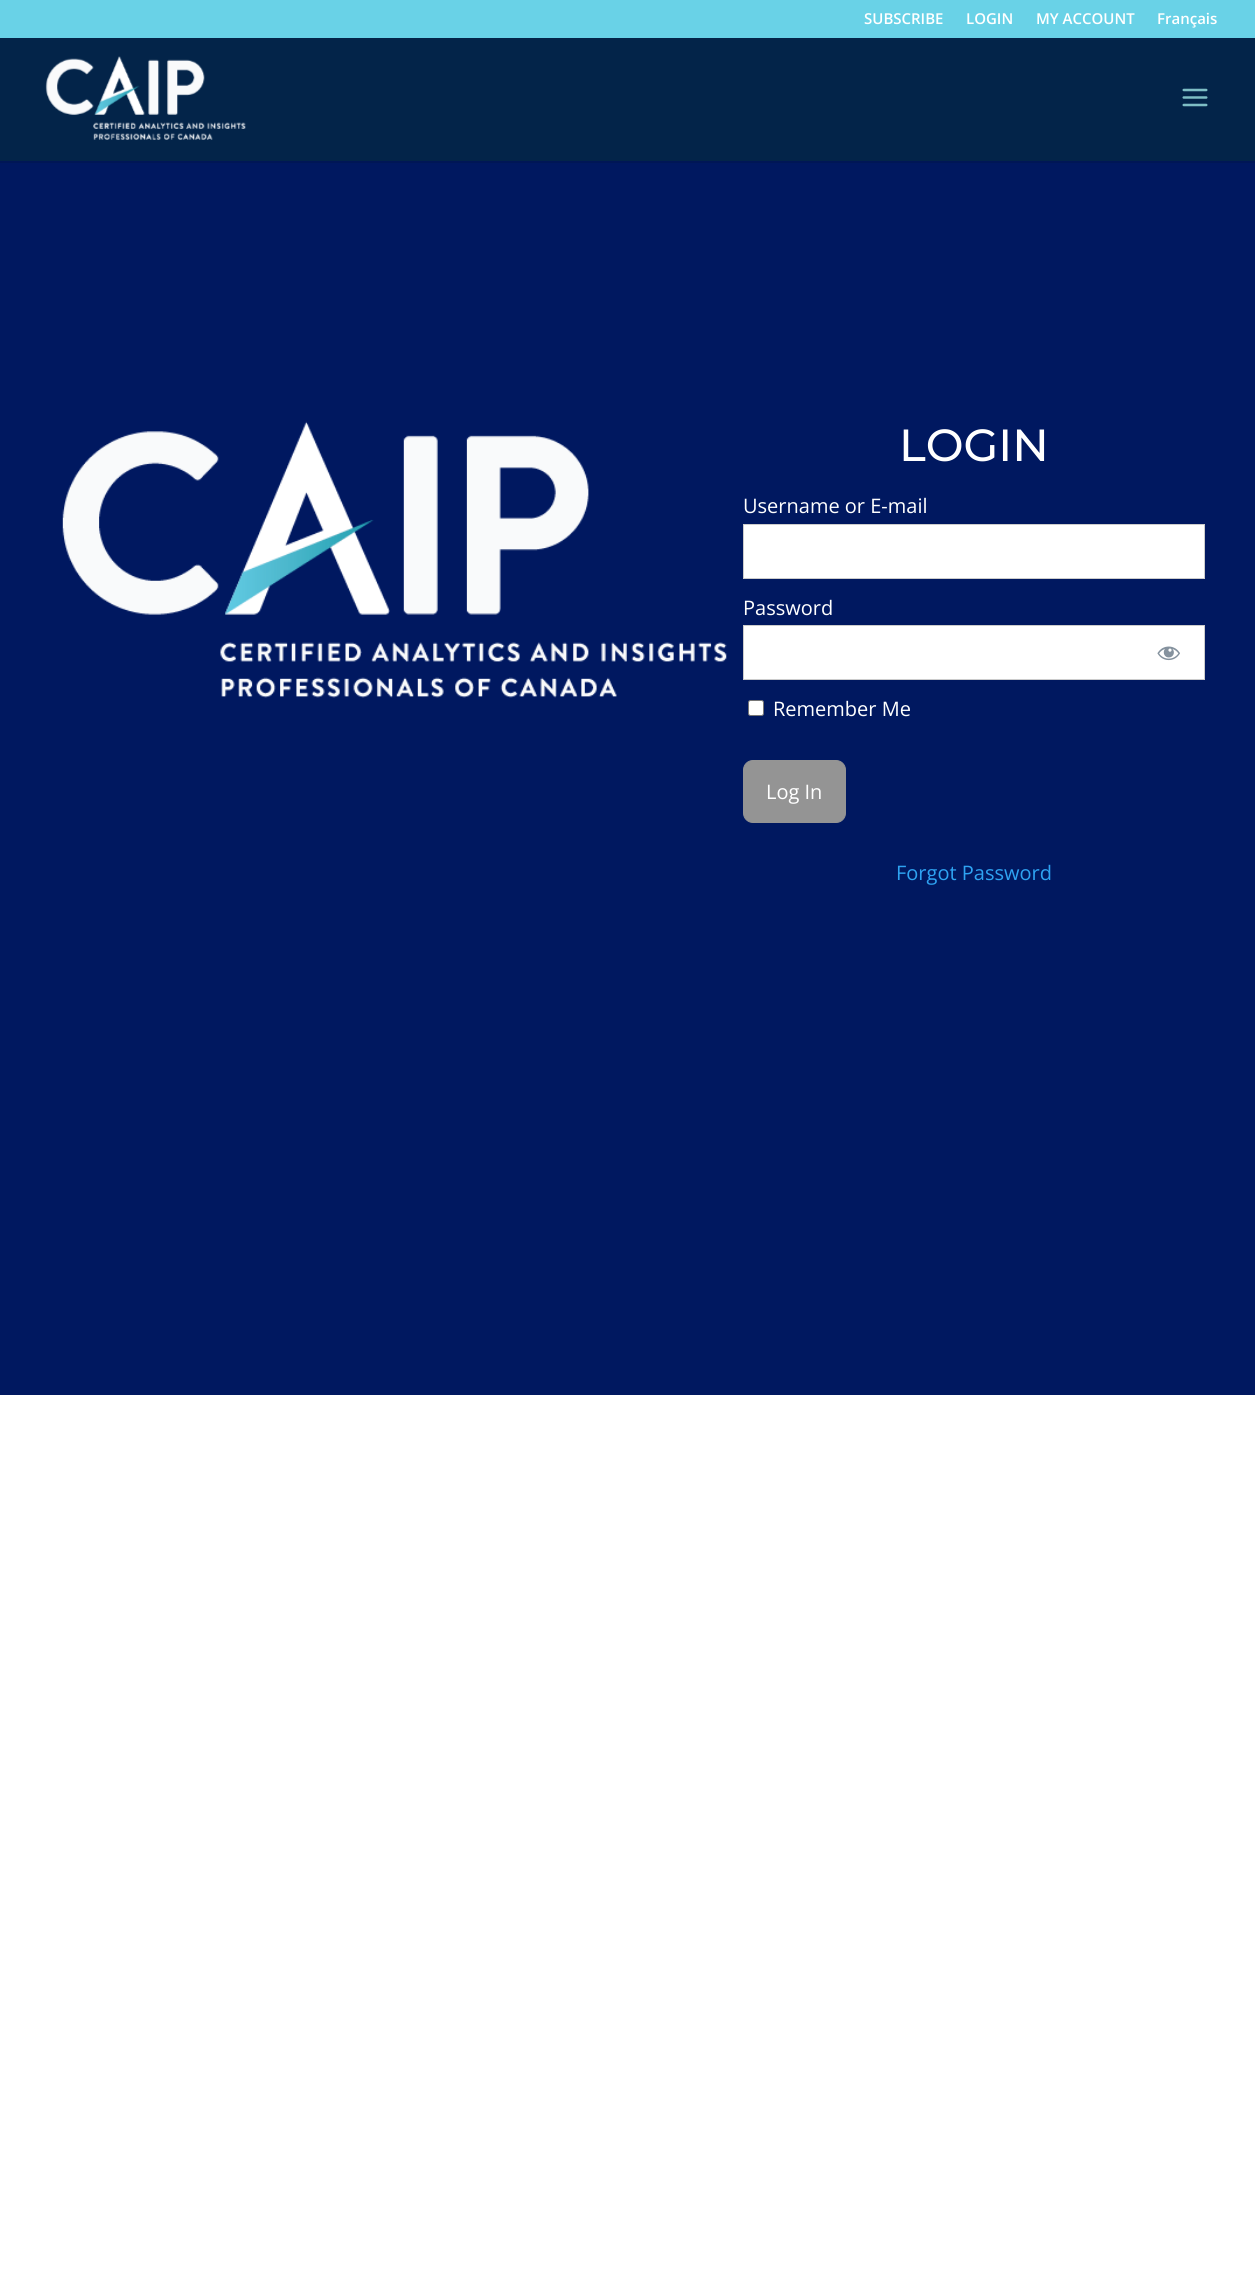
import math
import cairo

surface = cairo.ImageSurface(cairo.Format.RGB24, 1255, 2275)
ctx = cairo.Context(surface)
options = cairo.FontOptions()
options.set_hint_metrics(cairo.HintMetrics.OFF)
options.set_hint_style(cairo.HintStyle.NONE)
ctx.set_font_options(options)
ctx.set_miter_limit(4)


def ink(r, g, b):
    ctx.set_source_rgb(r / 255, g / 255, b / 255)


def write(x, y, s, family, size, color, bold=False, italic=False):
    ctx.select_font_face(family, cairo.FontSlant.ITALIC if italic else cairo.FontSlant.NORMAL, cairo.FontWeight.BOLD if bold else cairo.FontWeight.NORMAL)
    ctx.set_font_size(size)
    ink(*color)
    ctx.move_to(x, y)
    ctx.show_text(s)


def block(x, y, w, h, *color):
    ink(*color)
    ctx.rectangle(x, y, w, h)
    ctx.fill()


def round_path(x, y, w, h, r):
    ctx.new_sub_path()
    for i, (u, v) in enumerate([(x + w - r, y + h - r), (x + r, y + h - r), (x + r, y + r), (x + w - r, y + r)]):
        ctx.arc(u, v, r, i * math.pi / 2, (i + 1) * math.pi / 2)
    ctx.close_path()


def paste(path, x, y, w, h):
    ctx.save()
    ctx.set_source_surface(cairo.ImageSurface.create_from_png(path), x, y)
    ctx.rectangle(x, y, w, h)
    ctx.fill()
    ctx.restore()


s1 = dict(family="Open Sans SemiBold", size=15, color=(255, 255, 255))
s2 = dict(family="Montserrat Medium", size=45, color=(255, 255, 255))
s3 = dict(family="Open Sans", size=20, color=(255, 255, 255))
s4 = dict(family="Open Sans", size=20, color=(46, 163, 242))

ink(255, 255, 255)
ctx.paint()
block(0, 0, 1255, 38, 105, 210, 231)
write(864, 24, "SUBSCRIBE", **s1)
write(966, 24, "LOGIN", **s1)
write(1036, 24, "MY ACCOUNT", **s1)
write(1157, 24, "Français", **s1)
block(0, 161, 1255, 2, 0, 22, 86)
block(0, 38, 1255, 123, 3, 36, 73)
paste("pic1.png", 45, 56, 201, 84)
paste("pic2.png", 1182, 88, 26, 19)
block(0, 163, 1255, 1232, 0, 24, 96)
paste("pic3.png", 62, 421, 665, 277)
write(899, 461, "LOGIN", **s2)
write(743, 513, "Username or E-mail", **s3)
ctx.rectangle(743.5, 524.5, 461, 54)
ctx.fill_preserve()
ink(204, 204, 204)
ctx.set_line_width(1)
ctx.stroke()
write(743, 615, "Password", **s3)
ctx.rectangle(743.5, 625.5, 461, 54)
ctx.fill_preserve()
ink(204, 204, 204)
ctx.stroke()
paste("pic4.png", 1157, 646, 23, 15)
ink(255, 255, 255)
round_path(748.5, 700.5, 15, 15, 2)
ctx.fill_preserve()
ink(118, 118, 118)
ctx.stroke()
write(773, 716, "Remember Me", **s3)
ink(148, 148, 148)
round_path(743.5, 760.5, 102, 62, 9.5)
ctx.fill_preserve()
ctx.stroke()
write(766, 799, "Log In", **s3)
write(896, 880, "Forgot Password", **s4)
surface.write_to_png("screenshot.png")
